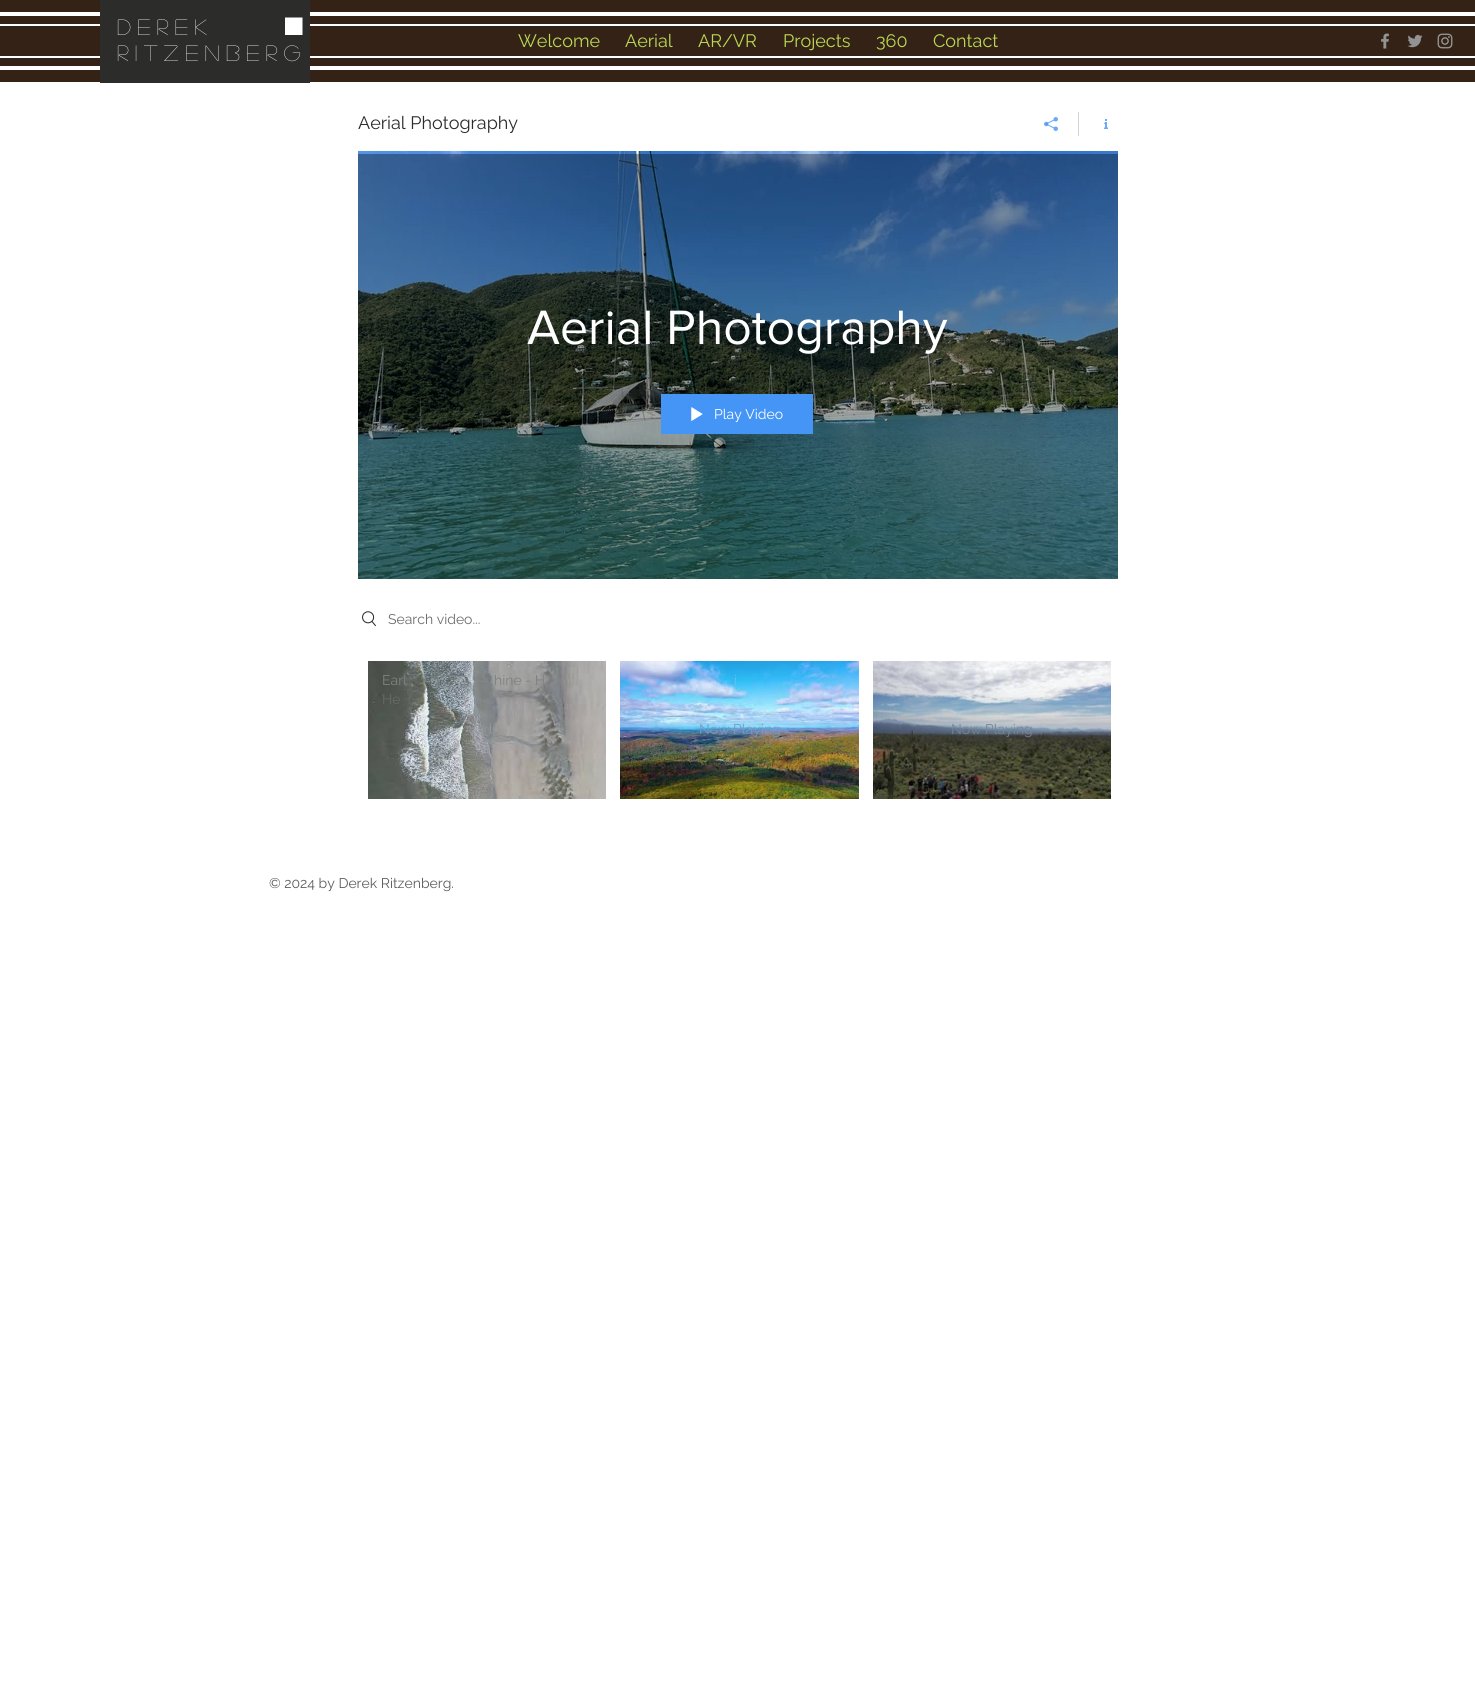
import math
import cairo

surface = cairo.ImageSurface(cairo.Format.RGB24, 1475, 1704)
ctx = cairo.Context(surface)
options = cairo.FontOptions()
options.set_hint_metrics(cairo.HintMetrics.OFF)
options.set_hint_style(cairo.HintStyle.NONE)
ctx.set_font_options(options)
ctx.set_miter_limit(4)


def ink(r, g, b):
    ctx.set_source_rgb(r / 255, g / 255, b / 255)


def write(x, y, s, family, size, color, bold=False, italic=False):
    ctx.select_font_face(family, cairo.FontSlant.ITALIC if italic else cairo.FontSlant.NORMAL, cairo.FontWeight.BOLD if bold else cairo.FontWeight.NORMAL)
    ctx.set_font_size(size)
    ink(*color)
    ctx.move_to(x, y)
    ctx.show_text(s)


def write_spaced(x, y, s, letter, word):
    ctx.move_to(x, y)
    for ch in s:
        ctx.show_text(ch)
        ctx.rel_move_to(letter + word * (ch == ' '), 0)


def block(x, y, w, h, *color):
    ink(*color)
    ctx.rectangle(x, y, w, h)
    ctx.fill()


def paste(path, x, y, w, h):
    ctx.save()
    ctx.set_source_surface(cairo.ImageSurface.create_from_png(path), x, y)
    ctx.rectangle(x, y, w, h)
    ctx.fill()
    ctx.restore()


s1 = dict(family="Raleway", size=18, color=(186, 218, 85))
s2 = dict(family="Raleway", size=18, color=(44, 44, 43))
s3 = dict(family="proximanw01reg", size=50, color=(255, 255, 255))
s4 = dict(family="Raleway", size=14, color=(255, 255, 255))
s5 = dict(family="Raleway", size=14, color=(107, 107, 107))
s6 = dict(family="Raleway", size=14, color=(125, 130, 129))
s7 = dict(family="Raleway", size=14, color=(101, 107, 101))
s8 = dict(family="Raleway", size=14, color=(152, 154, 154))
s9 = dict(family="Raleway", size=14, color=(111, 186, 240))
s10 = dict(family="Raleway", size=14, color=(110, 158, 196))
s11 = dict(family="Raleway", size=14, color=(117, 133, 151))
s12 = dict(family="Raleway", size=14, color=(94, 93, 93))

ink(255, 255, 255)
ctx.paint()
block(0, 0, 1475, 82, 52, 34, 22)
block(0, 12, 1475, 4, 255, 255, 255)
block(0, 66, 1475, 4, 255, 255, 255)
block(0, 24, 1475, 2, 255, 255, 255)
block(0, 56, 1475, 2, 255, 255, 255)
block(100, 0, 210, 83, 44, 44, 43)
block(285, 18, 17, 17, 255, 255, 255)
ctx.new_path()
ctx.move_to(285, 18)
ctx.line_to(302, 18)
ctx.line_to(302, 35)
ctx.line_to(302, 18)
ctx.close_path()
ctx.set_line_width(1)
ctx.stroke()
ctx.select_font_face("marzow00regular")
ctx.set_font_size(22)
write_spaced(117, 35, "derek", 6.5, 0)
write_spaced(117, 61, "ritzenberg", 6.5, 0)
write(518, 47, "Welcome", **s1)
write(625, 47, "Aerial", **s1)
write(698, 47, "AR/VR", **s1)
write(783, 47, "Projects", **s1)
write(876, 47, "360", **s1)
write(933, 47, "Contact", **s1)
paste("pic1.png", 1381, 33, 8, 16)
paste("pic2.png", 1407, 34, 16, 14)
paste("pic3.png", 1437, 33, 16, 16)
write(358, 129, "Aerial Photography", **s2)
block(1078, 112, 1, 24, 213, 213, 213)
paste("pic4.png", 1044, 117, 14, 14)
paste("pic5.png", 1104, 119, 4, 10)
paste("pic6.png", 358, 151, 760, 3)
paste("pic7.png", 358, 154, 760, 425)
write(527, 344, "Aerial Photography", **s3)
block(661, 394, 152, 40, 69, 149, 247)
paste("pic8.png", 691, 407, 12, 14)
write(714, 419, "Play Video", **s4)
paste("pic9.png", 362, 611, 14, 16)
write(388, 624, "Search video...", **s5)
paste("pic10.png", 368, 661, 238, 138)
paste("pic11.png", 370, 661, 234, 138)
write(382, 685, "Earl", **s6)
write(494, 685, "hine - H", **s6)
write(382, 704, "He", **s7)
write(489, 734, "l", **s8)
paste("pic12.png", 620, 661, 239, 138)
write(734, 685, "i", **s9)
write(699, 734, "Now Playing", **s10)
paste("pic13.png", 873, 661, 238, 1)
paste("pic14.png", 873, 662, 238, 137)
write(951, 734, "Now Playing", **s11)
write(269, 888, "© 2024 by Derek Ritzenberg.", **s12)
surface.write_to_png("screenshot.png")
